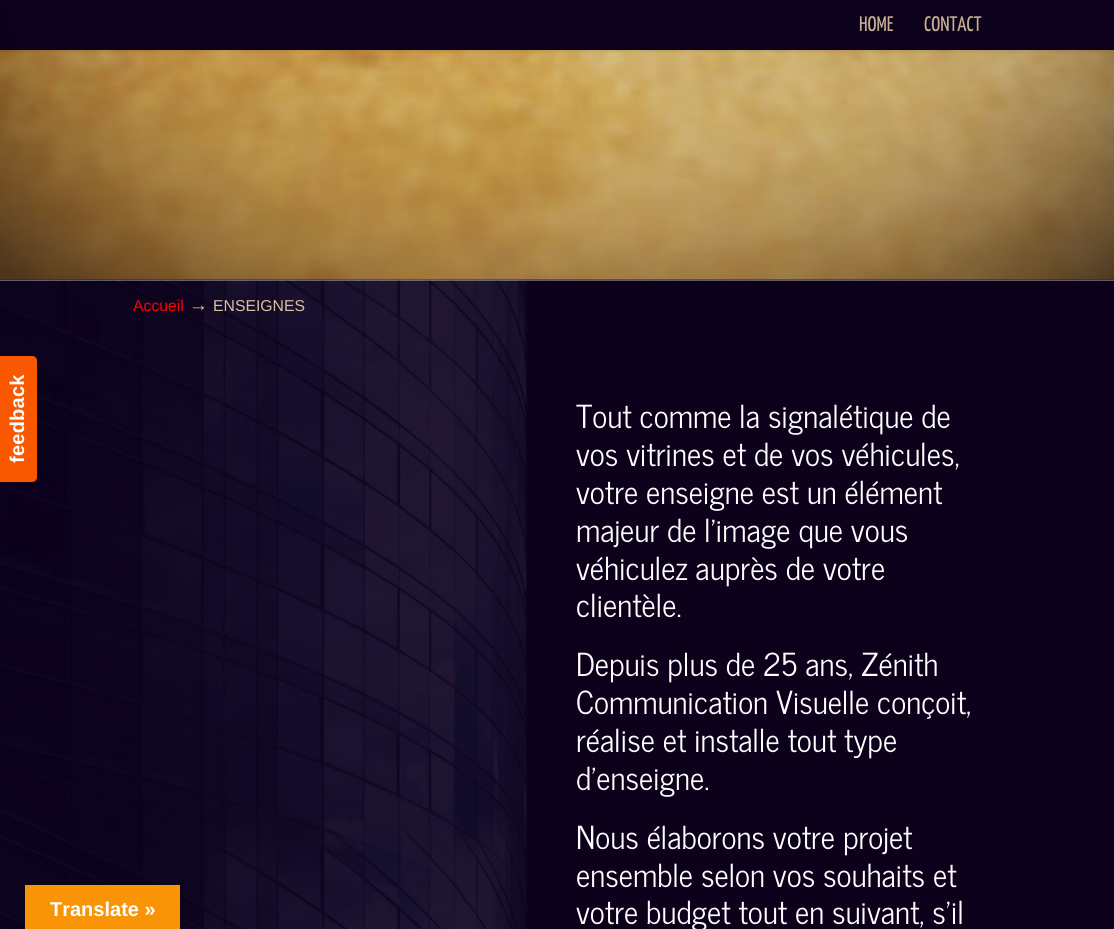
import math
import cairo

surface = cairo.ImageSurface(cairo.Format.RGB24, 1114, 929)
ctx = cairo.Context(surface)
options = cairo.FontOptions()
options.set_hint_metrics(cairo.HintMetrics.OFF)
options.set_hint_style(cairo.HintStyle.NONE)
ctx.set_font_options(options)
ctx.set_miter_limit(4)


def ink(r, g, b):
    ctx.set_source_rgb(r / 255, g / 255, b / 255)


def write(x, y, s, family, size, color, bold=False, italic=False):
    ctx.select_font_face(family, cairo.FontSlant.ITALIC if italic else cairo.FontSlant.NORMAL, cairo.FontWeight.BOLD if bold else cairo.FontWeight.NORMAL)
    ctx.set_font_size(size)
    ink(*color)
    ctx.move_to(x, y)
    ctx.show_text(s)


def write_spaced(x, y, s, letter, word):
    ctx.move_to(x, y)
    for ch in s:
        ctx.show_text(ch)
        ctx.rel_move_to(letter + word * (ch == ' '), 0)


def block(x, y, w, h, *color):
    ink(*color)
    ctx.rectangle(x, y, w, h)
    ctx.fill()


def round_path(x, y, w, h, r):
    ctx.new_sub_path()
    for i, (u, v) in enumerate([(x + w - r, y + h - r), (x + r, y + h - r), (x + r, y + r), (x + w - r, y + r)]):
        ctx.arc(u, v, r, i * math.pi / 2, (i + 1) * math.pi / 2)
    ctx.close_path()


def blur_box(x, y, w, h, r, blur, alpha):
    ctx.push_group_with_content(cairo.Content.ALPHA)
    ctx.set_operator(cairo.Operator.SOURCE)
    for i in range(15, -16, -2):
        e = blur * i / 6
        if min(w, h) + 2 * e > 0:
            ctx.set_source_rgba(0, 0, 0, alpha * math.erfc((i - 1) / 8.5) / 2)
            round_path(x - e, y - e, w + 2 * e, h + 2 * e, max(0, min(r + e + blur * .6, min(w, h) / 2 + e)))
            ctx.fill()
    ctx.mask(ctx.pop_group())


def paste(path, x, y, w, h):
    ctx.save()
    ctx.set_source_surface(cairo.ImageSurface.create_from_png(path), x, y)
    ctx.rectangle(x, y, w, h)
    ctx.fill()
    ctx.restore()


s1 = dict(family="Yanone Kaffeesatz ExtraLight", size=21, color=(198, 174, 146))
s2 = dict(family="Liberation Sans", size=15.75, color=(255, 0, 0))
s3 = dict(family="Liberation Sans", size=19, color=(218, 193, 159))
s4 = dict(family="Liberation Sans", size=15.75, color=(218, 193, 159))
s5 = dict(family="News Cycle", size=31.5, color=(255, 255, 255))
s6 = dict(family="Liberation Sans", size=20, color=(255, 255, 255), bold=True)

ink(12, 0, 27)
ctx.paint()
paste("pic2.png", 0, 279, 528, 650)
ink(249, 87, 0)
ctx.new_path()
ctx.move_to(-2, 482)
ctx.line_to(-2, 356)
ctx.line_to(32, 356)
ctx.curve_to(35, 356, 37, 358, 37, 361)
ctx.line_to(37, 477)
ctx.curve_to(37, 480, 35, 482, 32, 482)
ctx.close_path()
ctx.fill()
ctx.select_font_face("Liberation Sans", cairo.FontSlant.NORMAL, cairo.FontWeight.BOLD)
ctx.set_font_size(20)
ink(255, 255, 255)
ctx.save()
ctx.translate(24, 463)
ctx.rotate(-90 * math.pi / 180)
write_spaced(0, 0, "feedback", 0.25, 0)
ctx.restore()
paste("pic3.png", 0, 279, 1114, 2)
paste("pic1.png", 0, 0, 1114, 280)
ctx.set_source_rgba(0.047, 0, 0.106, 0.9)
ctx.rectangle(0, 0, 1114, 50)
ctx.fill()
ctx.save()
ctx.rectangle(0, 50, 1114, 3)
ctx.clip()
ink(0, 0, 0)
blur_box(0, 0, 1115, 50, 0, 3, 0.14)
ctx.restore()
ctx.rectangle(0, 0, 1114, 50)
ctx.fill()
write(859, 31, "HOME", **s1)
write(924, 31, "CONTACT", **s1)
write(133, 311, "Accueil", **s2)
write(189, 311, "→", **s3)
write(213, 311, "ENSEIGNES", **s4)
write(576, 428, "Tout comme la signalétique de", **s5)
write(576, 466, "vos vitrines et de vos véhicules,", **s5)
write(576, 504, "votre enseigne est un élément", **s5)
write(576, 542, "majeur de l’image que vous", **s5)
write(576, 580, "véhiculez auprès de votre", **s5)
write(576, 617, "clientèle.", **s5)
write(576, 676, "Depuis plus de 25 ans, Zénith", **s5)
write(576, 714, "Communication Visuelle conçoit,", **s5)
write(576, 752, "réalise et installe tout type", **s5)
write(576, 790, "d’enseigne.", **s5)
write(576, 849, "Nous élaborons votre projet", **s5)
write(576, 887, "ensemble selon vos souhaits et", **s5)
write(576, 924, "votre budget tout en suivant, s’il", **s5)
ink(0, 0, 0)
blur_box(25, 885, 155, 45, 0, 5.5, 0.3)
block(25, 885, 155, 44, 248, 148, 6)
write(50, 916, "Translate »", **s6)
surface.write_to_png("screenshot.png")
